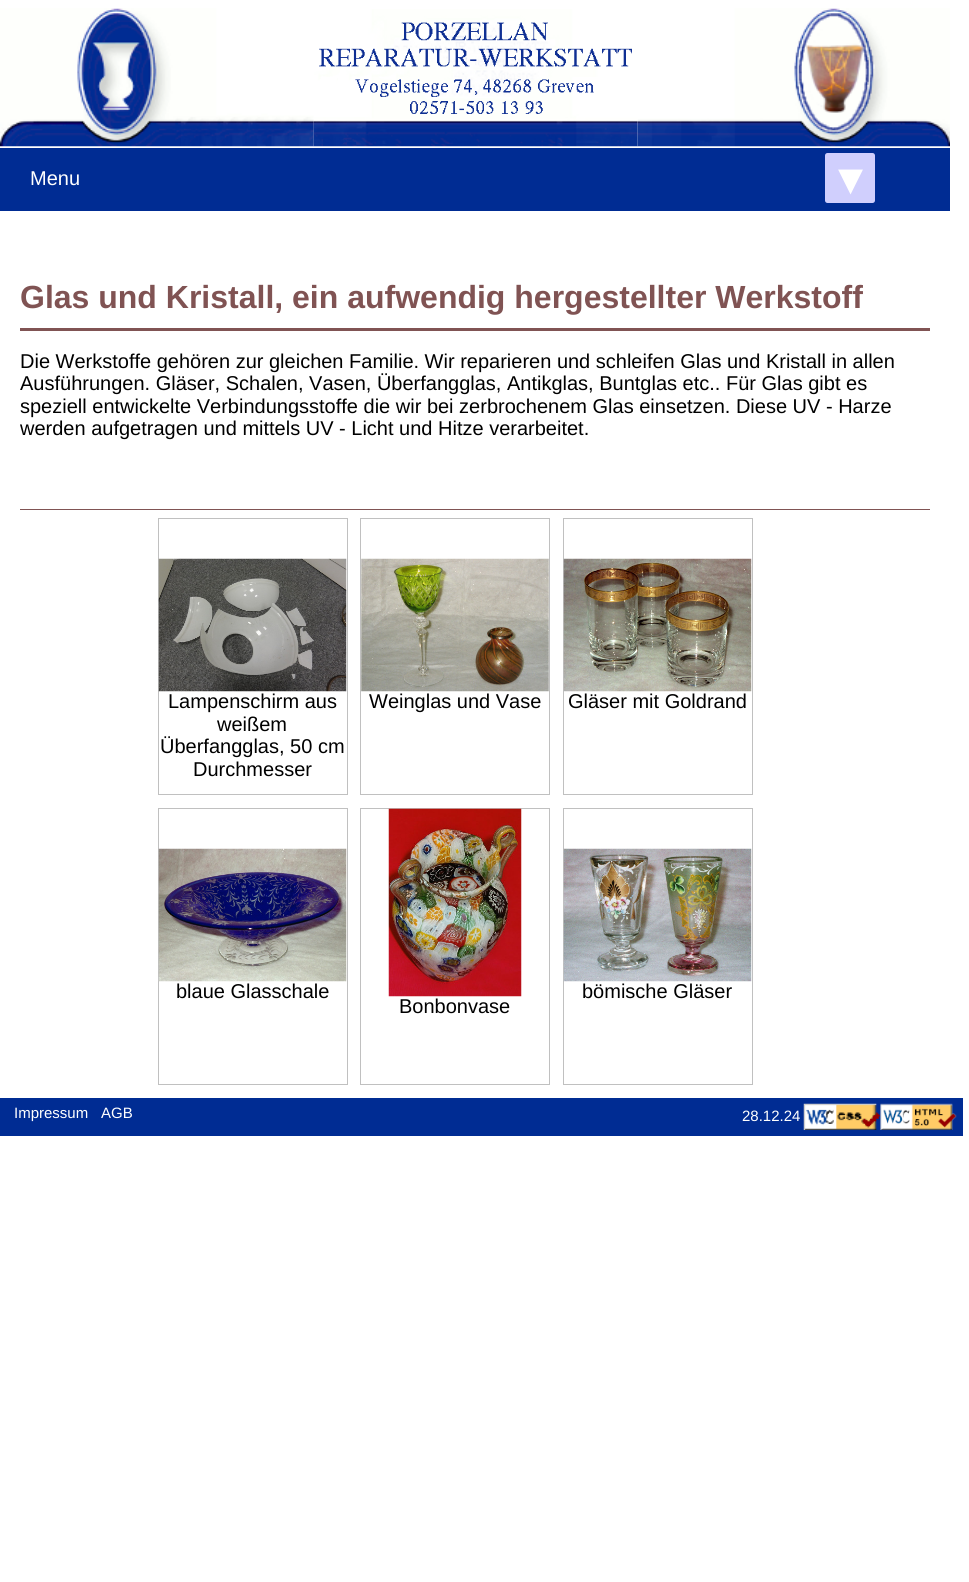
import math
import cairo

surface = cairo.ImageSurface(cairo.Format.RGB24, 969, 1582)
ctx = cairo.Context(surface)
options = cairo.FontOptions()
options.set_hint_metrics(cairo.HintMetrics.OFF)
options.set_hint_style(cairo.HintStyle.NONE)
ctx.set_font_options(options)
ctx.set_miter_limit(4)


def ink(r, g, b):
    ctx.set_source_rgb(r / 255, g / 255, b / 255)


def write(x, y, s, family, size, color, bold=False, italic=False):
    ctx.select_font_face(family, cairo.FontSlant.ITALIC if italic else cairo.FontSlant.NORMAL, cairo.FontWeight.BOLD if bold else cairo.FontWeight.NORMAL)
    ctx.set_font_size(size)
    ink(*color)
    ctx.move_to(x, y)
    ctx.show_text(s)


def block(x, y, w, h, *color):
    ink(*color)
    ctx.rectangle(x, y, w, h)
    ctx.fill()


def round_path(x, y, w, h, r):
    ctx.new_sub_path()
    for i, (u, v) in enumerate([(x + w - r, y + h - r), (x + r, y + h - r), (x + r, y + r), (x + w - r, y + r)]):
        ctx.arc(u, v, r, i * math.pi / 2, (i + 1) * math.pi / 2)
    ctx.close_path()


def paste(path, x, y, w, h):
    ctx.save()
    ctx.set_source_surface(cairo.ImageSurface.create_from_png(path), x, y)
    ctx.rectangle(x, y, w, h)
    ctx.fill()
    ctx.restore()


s1 = dict(family="Liberation Sans", size=20, color=(255, 255, 255))
s2 = dict(family="DejaVu Sans", size=50, color=(255, 255, 255))
s3 = dict(family="Liberation Sans", size=32, color=(128, 83, 83), bold=True)
s4 = dict(family="Liberation Sans", size=20, color=(0, 0, 0))
s5 = dict(family="Liberation Sans", size=15, color=(255, 255, 255))

ink(255, 255, 255)
ctx.paint()
paste("pic1.png", 0, 8, 314, 139)
paste("pic3.png", 637, 8, 313, 139)
paste("pic2.png", 313, 9, 325, 138)
block(0, 148, 950, 63, 0, 44, 147)
write(30, 185, "Menu", **s1)
ink(208, 207, 253)
round_path(825, 153, 50, 50, 2.5)
ctx.fill()
write(838, 195, "▾", **s2)
block(20, 328, 910, 3, 128, 83, 83)
write(20, 308, "Glas und Kristall, ein aufwendig hergestellter Werkstoff", **s3)
write(20, 368, "Die Werkstoffe gehören zur gleichen Familie. Wir reparieren und schleifen Glas und Kristall in allen", **s4)
write(20, 390, "Ausführungen. Gläser, Schalen, Vasen, Überfangglas, Antikglas, Buntglas etc.. Für Glas gibt es", **s4)
write(20, 413, "speziell entwickelte Verbindungsstoffe die wir bei zerbrochenem Glas einsetzen. Diese UV - Harze", **s4)
write(20, 435, "werden aufgetragen und mittels UV - Licht und Hitze verarbeitet.", **s4)
block(20, 509, 910, 1, 128, 83, 83)
ctx.rectangle(158.5, 518.5, 189, 276)
ink(192, 192, 192)
ctx.set_line_width(1)
ctx.stroke()
paste("pic4.png", 158, 558, 189, 134)
write(168, 708, "Lampenschirm aus", **s4)
write(217, 731, "weißem", **s4)
write(160, 753, "Überfangglas, 50 cm", **s4)
write(193, 776, "Durchmesser", **s4)
ctx.rectangle(360.5, 518.5, 189, 276)
ink(192, 192, 192)
ctx.stroke()
paste("pic5.png", 361, 558, 188, 134)
write(369, 708, "Weinglas und Vase", **s4)
ctx.rectangle(563.5, 518.5, 189, 276)
ink(192, 192, 192)
ctx.stroke()
paste("pic6.png", 563, 558, 189, 134)
write(568, 708, "Gläser mit Goldrand", **s4)
ctx.rectangle(158.5, 808.5, 189, 276)
ink(192, 192, 192)
ctx.stroke()
paste("pic7.png", 158, 848, 189, 134)
write(176, 998, "blaue Glasschale", **s4)
ctx.rectangle(563.5, 808.5, 189, 276)
ink(192, 192, 192)
ctx.stroke()
paste("pic8.png", 563, 848, 189, 134)
write(582, 998, "bömische Gläser", **s4)
ctx.rectangle(360.5, 808.5, 189, 276)
ink(192, 192, 192)
ctx.stroke()
paste("pic9.png", 388, 808, 134, 189)
write(399, 1013, "Bonbonvase", **s4)
block(0, 1098, 963, 38, 0, 44, 147)
write(14, 1118, "Impressum", **s5)
write(101, 1118, "AGB", **s5)
write(742, 1121, "28.12.24", **s5)
paste("pic10.png", 803, 1103, 77, 27)
paste("pic11.png", 880, 1103, 77, 27)
surface.write_to_png("screenshot.png")
